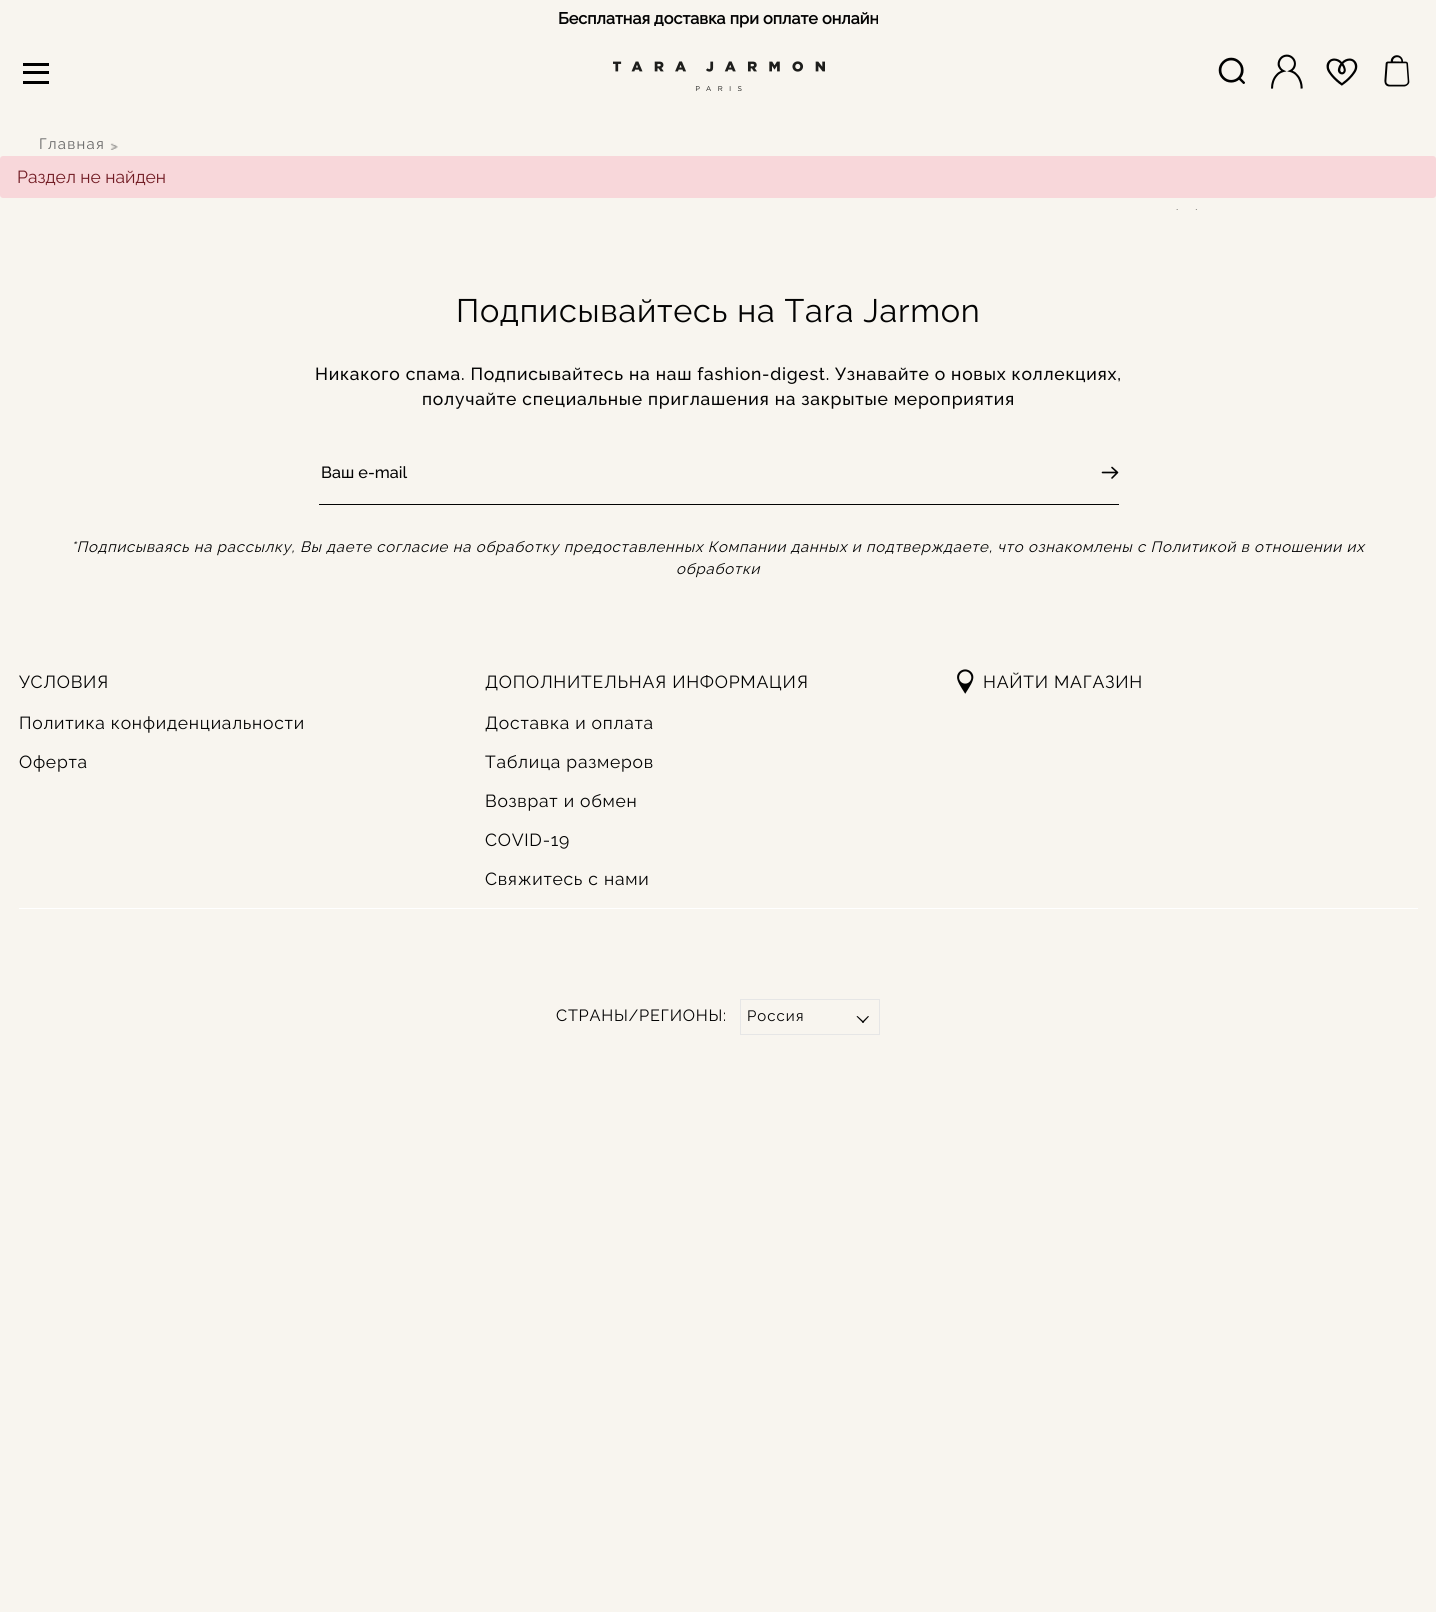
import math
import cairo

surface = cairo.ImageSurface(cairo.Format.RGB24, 1436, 1612)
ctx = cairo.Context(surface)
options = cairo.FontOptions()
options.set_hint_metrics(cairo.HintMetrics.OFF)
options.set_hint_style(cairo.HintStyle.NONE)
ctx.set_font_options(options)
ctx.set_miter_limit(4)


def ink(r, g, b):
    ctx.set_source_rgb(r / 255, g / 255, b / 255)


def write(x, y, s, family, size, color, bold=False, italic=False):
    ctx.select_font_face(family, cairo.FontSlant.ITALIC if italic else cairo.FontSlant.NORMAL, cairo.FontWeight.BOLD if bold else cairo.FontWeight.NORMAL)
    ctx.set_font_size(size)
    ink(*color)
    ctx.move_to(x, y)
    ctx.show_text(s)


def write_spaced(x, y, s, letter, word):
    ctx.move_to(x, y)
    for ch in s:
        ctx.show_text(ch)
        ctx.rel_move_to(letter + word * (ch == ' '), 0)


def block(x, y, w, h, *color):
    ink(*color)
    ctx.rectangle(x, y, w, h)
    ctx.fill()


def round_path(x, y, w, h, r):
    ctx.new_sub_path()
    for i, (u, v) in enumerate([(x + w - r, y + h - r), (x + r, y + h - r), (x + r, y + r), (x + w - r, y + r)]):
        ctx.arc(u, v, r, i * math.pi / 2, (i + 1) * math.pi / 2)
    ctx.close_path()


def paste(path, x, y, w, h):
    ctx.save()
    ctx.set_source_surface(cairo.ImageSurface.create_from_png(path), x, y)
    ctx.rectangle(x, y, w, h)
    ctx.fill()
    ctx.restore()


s1 = dict(family="Raleway", size=16.25, color=(3, 3, 3), bold=True)
s2 = dict(family="Raleway", size=17.5, color=(114, 28, 36))
s3 = dict(family="Raleway Medium", size=16.25, color=(3, 3, 3))

ink(248, 245, 239)
ctx.paint()
write(558, 24, "Бесплатная доставка при оплате онлайн", **s1)
block(23, 63, 26, 3, 0, 0, 0)
block(23, 71, 26, 3, 0, 0, 0)
block(23, 81, 26, 3, 0, 0, 0)
paste("pic1.png", 613, 61, 212, 30)
paste("pic2.png", 1218, 57, 27, 27)
paste("pic3.png", 1271, 54, 32, 35)
paste("pic4.png", 1326, 58, 32, 28)
paste("pic5.png", 1384, 55, 26, 32)
ctx.select_font_face("Raleway")
ctx.set_font_size(15)
ink(103, 103, 103)
write_spaced(39, 149, "Главная", 1.25, 0)
paste("pic6.png", 110, 143, 8, 7)
paste("pic7.png", 1176, 209, 21, 1)
ink(248, 215, 218)
round_path(0, 156, 1436, 42, 3)
ctx.fill()
write(17, 183, "Раздел не найден", **s2)
ctx.set_font_size(32.5)
ink(3, 3, 3)
write_spaced(456, 322, "Подписывайтесь на Tara Jarmon", 0.75, 0)
ctx.select_font_face("Raleway Medium")
ctx.set_font_size(17.5)
write_spaced(315, 380, "Никакого спама. Подписывайтесь на наш fashion-digest. Узнавайте о новых коллекциях,", 0.75, 0)
write_spaced(422, 405, "получайте специальные приглашения на закрытые мероприятия", 0.75, 0)
block(319, 504, 800, 1, 3, 3, 3)
write(321, 478, "Ваш e-mail", **s3)
ctx.new_path()
ctx.move_to(1112, 478)
ctx.line_to(1117.5, 472.5)
ctx.move_to(1117.5, 472.5)
ctx.line_to(1112, 467.5)
ctx.move_to(1117.5, 472.5)
ctx.line_to(1102.5, 472.5)
ctx.set_line_width(1.6)
ctx.set_line_cap(cairo.LineCap.ROUND)
ctx.set_line_join(cairo.LineJoin.ROUND)
ctx.stroke()
ctx.select_font_face("Raleway", cairo.FontSlant.ITALIC)
ctx.set_font_size(15)
write_spaced(71, 552, "*Подписываясь на рассылку, Вы даете согласие на обработку предоставленных Компании данных и подтверждаете, что ознакомлены с Политикой в отношении их", 0.75, 0)
write_spaced(676, 574, "обработки", 0.75, 0)
block(19, 908, 1399, 1, 255, 255, 255)
ctx.select_font_face("Raleway")
ctx.set_font_size(17.5)
ink(3, 3, 3)
write_spaced(19, 688, "УСЛОВИЯ", 0.75, 0)
write_spaced(19, 729, "Политика конфиденциальности", 0.75, 0)
write_spaced(19, 768, "Оферта", 0.75, 0)
write_spaced(485, 688, "ДОПОЛНИТЕЛЬНАЯ ИНФОРМАЦИЯ", 0.75, 0)
write_spaced(485, 729, "Доставка и оплата", 0.75, 0)
write_spaced(485, 768, "Таблица размеров", 0.75, 0)
write_spaced(485, 807, "Возврат и обмен", 0.75, 0)
write_spaced(485, 846, "COVID-19", 0.75, 0)
write_spaced(485, 885, "Свяжитесь с нами", 0.75, 0)
paste("pic8.png", 957, 669, 17, 25)
write_spaced(983, 688, "НАЙТИ МАГАЗИН", 0.75, 0)
ctx.set_font_size(16.25)
write_spaced(556, 1021, "СТРАНЫ/РЕГИОНЫ:", 0.75, 0)
ctx.rectangle(740.5, 999.5, 139, 35)
ink(230, 230, 230)
ctx.set_line_width(1)
ctx.set_line_cap(cairo.LineCap.BUTT)
ctx.set_line_join(cairo.LineJoin.MITER)
ctx.stroke()
ctx.set_font_size(15)
ink(3, 3, 3)
write_spaced(747, 1021, "Россия", 1, 0)
ink(0, 0, 0)
ctx.new_path()
ctx.move_to(868, 1016)
ctx.line_to(869, 1016.5)
ctx.line_to(863, 1023)
ctx.line_to(862, 1022)
ctx.close_path()
ctx.fill()
ctx.new_path()
ctx.move_to(857.5, 1016)
ctx.line_to(864, 1022)
ctx.line_to(863, 1023)
ctx.line_to(856.5, 1016.5)
ctx.close_path()
ctx.fill()
surface.write_to_png("screenshot.png")
